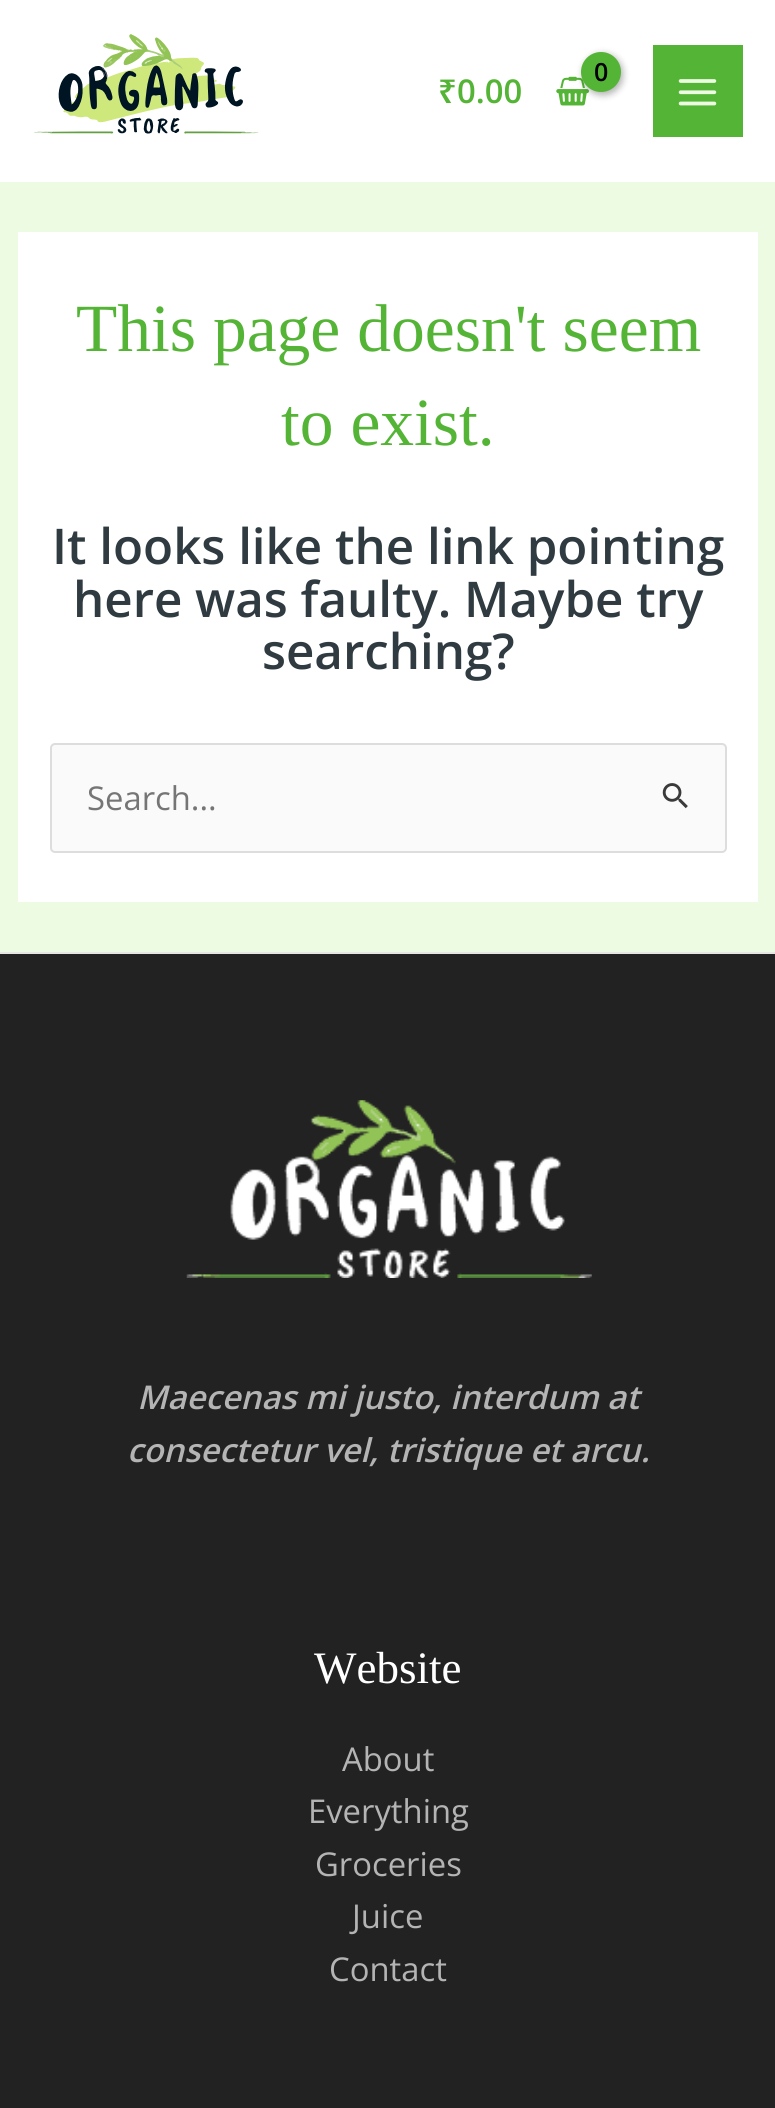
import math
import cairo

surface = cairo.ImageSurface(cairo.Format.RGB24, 775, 2108)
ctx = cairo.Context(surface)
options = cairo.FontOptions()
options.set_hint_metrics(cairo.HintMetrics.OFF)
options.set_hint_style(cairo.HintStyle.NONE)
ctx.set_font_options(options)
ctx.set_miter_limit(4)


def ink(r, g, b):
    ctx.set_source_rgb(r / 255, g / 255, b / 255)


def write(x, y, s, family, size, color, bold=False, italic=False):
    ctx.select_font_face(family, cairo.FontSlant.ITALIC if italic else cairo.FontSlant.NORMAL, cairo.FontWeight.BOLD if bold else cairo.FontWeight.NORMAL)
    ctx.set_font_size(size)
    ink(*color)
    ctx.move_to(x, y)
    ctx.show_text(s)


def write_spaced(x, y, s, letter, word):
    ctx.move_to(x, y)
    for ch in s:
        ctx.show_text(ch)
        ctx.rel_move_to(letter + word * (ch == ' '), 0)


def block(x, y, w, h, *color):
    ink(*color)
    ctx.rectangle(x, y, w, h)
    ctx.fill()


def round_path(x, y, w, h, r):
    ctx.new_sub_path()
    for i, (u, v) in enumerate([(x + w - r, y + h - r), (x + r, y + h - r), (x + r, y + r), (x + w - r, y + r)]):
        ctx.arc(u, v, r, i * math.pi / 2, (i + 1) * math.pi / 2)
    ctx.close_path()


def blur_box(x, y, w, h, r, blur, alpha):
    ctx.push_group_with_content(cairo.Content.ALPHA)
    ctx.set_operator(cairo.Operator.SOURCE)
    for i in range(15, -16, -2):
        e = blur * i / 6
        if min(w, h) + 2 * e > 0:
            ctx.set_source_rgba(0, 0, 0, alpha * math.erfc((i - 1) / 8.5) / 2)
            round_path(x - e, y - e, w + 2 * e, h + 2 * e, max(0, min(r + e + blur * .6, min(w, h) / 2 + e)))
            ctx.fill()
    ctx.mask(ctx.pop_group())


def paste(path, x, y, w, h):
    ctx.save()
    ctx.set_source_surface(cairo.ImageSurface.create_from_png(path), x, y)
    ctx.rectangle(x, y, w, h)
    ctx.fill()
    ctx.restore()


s1 = dict(family="Noto Sans SemiBold", size=32.8, color=(84, 180, 53))
s2 = dict(family="Open Sans SemiBold", size=32.8, color=(84, 180, 53))
s3 = dict(family="Liberation Serif", size=67.5, color=(84, 180, 53))
s4 = dict(family="Open Sans SemiBold", size=49.25, color=(47, 59, 64))
s5 = dict(family="Open Sans", size=32.8, color=(117, 117, 117))
s6 = dict(family="Open Sans SemiBold", size=32.8, color=(180, 180, 180), italic=True)
s7 = dict(family="Liberation Serif", size=45, color=(255, 255, 255))
s8 = dict(family="Open Sans", size=32.8, color=(180, 180, 180))

ink(237, 251, 226)
ctx.paint()
block(0, 0, 775, 182, 255, 255, 255)
paste("pic1.png", 34, 34, 225, 100)
paste("pic2.png", 556, 76, 33, 30)
ink(0, 0, 0)
blur_box(583, 54, 40, 41, 20, 3.5, 0.3)
ink(84, 180, 53)
ctx.arc(601, 72, 20, 0, 2 * math.pi)
ctx.fill()
ctx.select_font_face("Open Sans SemiBold")
ctx.set_font_size(25)
ink(0, 0, 0)
write_spaced(594, 81, "0", -1, 0)
write(438, 103, "₹", **s1)
write(457, 103, "0.00", **s2)
block(653, 45, 90, 92, 84, 180, 53)
paste("pic3.png", 678, 79, 39, 27)
block(18, 232, 740, 670, 255, 255, 255)
write(76, 351, "This page doesn't seem", **s3)
write(281, 445, "to exist.", **s3)
write(52, 564, "It looks like the link pointing", **s4)
write(73, 617, "here was faulty. Maybe try", **s4)
write(262, 669, "searching?", **s4)
ink(250, 250, 250)
round_path(51, 744, 675, 108, 4)
ctx.fill_preserve()
ink(221, 221, 221)
ctx.stroke()
write(87, 810, "Search...", **s5)
paste("pic4.png", 662, 783, 26, 26)
block(0, 954, 775, 1154, 34, 34, 34)
block(0, 952, 775, 2, 230, 230, 230)
paste("pic5.png", 186, 1100, 406, 178)
write(137, 1409, "Maecenas mi justo, interdum at", **s6)
write(127, 1462, "consectetur vel, tristique et arcu.", **s6)
write(314, 1683, "Website", **s7)
write(342, 1771, "About", **s8)
write(308, 1823, "Everything", **s8)
write(315, 1876, "Groceries", **s8)
write(352, 1928, "Juice", **s8)
write(329, 1981, "Contact", **s8)
surface.write_to_png("screenshot.png")
